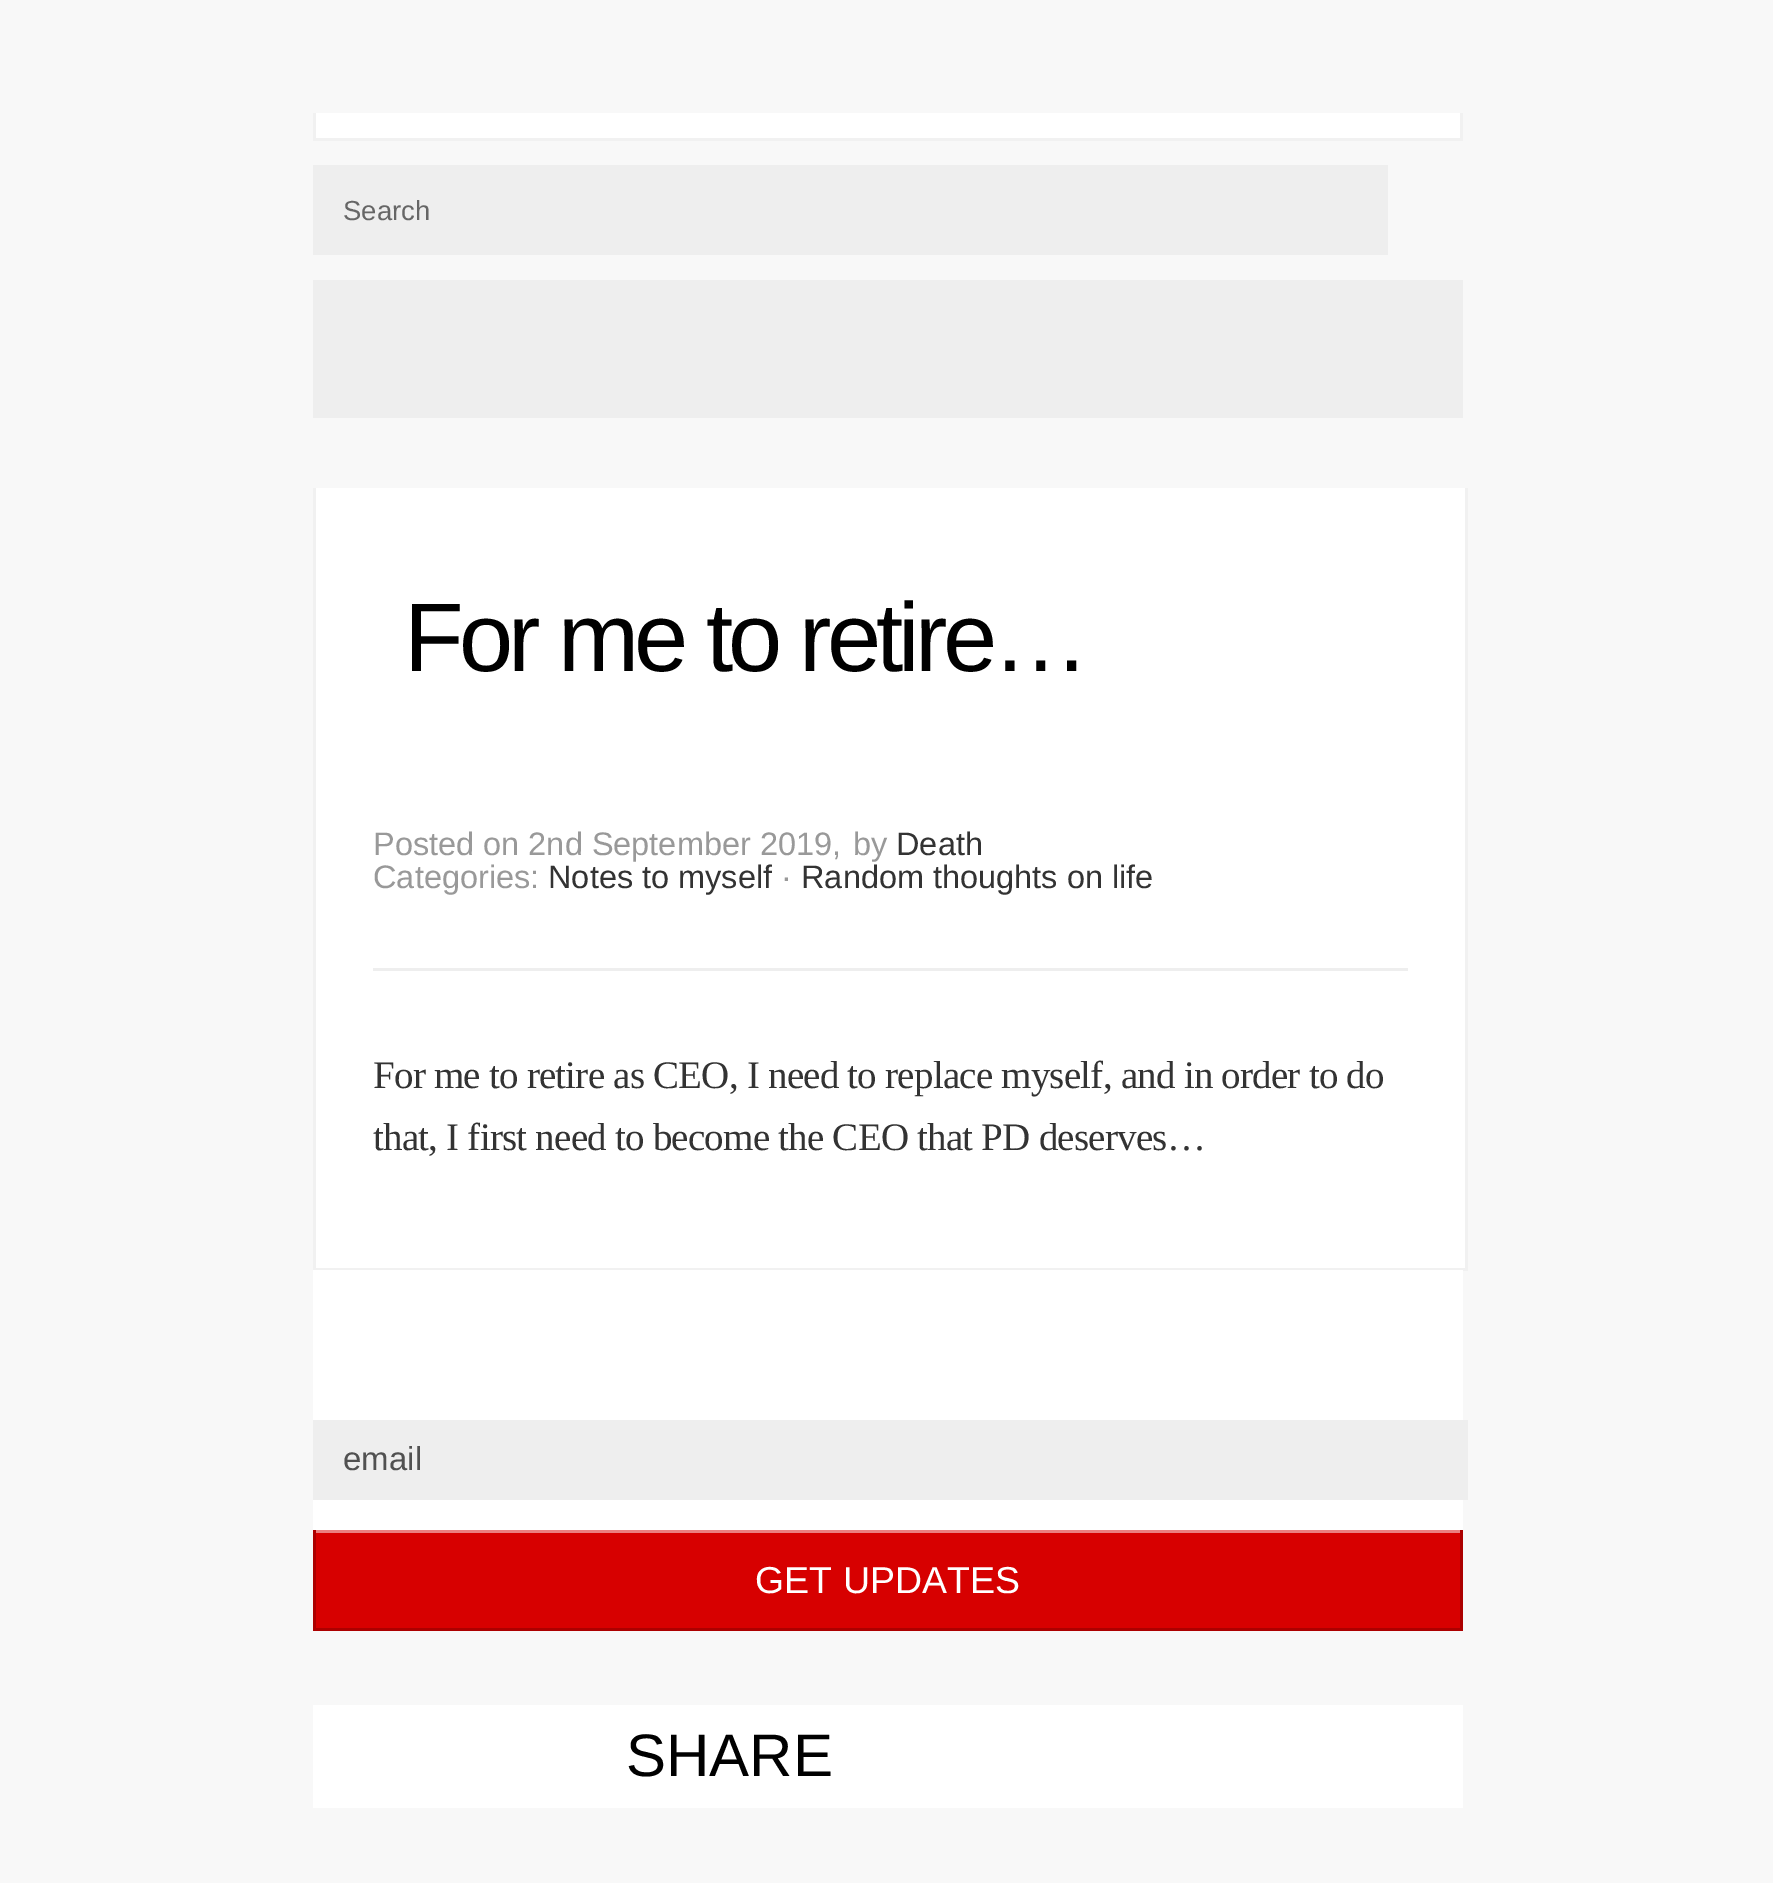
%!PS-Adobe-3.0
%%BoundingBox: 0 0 1773 1883
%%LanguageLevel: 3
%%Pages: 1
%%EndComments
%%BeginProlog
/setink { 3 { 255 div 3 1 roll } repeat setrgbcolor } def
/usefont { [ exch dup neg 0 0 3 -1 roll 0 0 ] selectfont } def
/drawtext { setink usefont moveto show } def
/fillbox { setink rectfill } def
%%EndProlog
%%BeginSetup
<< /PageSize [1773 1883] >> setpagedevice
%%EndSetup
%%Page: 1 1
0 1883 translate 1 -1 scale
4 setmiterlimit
0 0 1773 1883 248 248 248 fillbox
316 113 1144 25 255 255 255 fillbox
1460 113 3 27 241 241 241 fillbox
313 138 1150 3 241 241 241 fillbox
313 113 3 27 241 241 241 fillbox
313 165 1075 90 238 238 238 fillbox
(Search) 343 220 /LiberationSans-Regular 27.5 102 102 102 drawtext
313 280 1150 138 238 238 238 fillbox
316 488 1149 780 255 255 255 fillbox
1465 488 3 782 241 241 241 fillbox
313 1268 1155 3 241 241 241 fillbox
313 488 3 782 241 241 241 fillbox
/LiberationSans-Regular 97.5 usefont
0 0 0 setink
404 671 moveto -4.9 0 (For me to retire…) ashow
(Posted on 2nd September 2019,) 373 855 /LiberationSans-Regular 32.5 153 153 153 drawtext
(by) 853 855 /LiberationSans-Regular 32.5 153 153 153 drawtext
(Death) 896 855 /LiberationSans-Regular 32.5 51 51 51 drawtext
(Categories:) 373 888 /LiberationSans-Regular 32.5 153 153 153 drawtext
(Notes to myself) 548 888 /LiberationSans-Regular 32.5 51 51 51 drawtext
(·) 781 888 /LiberationSans-Regular 32.5 153 153 153 drawtext
(Random thoughts on life) 801 888 /LiberationSans-Regular 32.5 51 51 51 drawtext
373 968 1035 3 238 238 238 fillbox
/LiberationSerif-Regular 39 usefont
51 51 51 setink
373 1088 moveto -0.78 0 (For me to retire as CEO, I need to replace myself, and in order to do) ashow
373 1150 moveto -0.78 0 (that, I first need to become the CEO that PD deserves…) ashow
313 1270 1150 260 255 255 255 fillbox
313 1420 1155 80 238 238 238 fillbox
(email) 343 1470 /LiberationSans-Regular 33 81 81 81 drawtext
316 1533 1144 95 215 0 0 fillbox
313 1530 1150 3 235 128 128 fillbox
1460 1530 3 100 172 0 0 fillbox
313 1628 1150 3 172 0 0 fillbox
313 1530 3 100 172 0 0 fillbox
(GET UPDATES) 755 1593 /LiberationSans-Regular 37.5 255 255 255 drawtext
313 1705 1150 103 255 255 255 fillbox
(SHARE) 626 1776 /LiberationSans-Regular 60 0 0 0 drawtext
showpage
%%EOF
